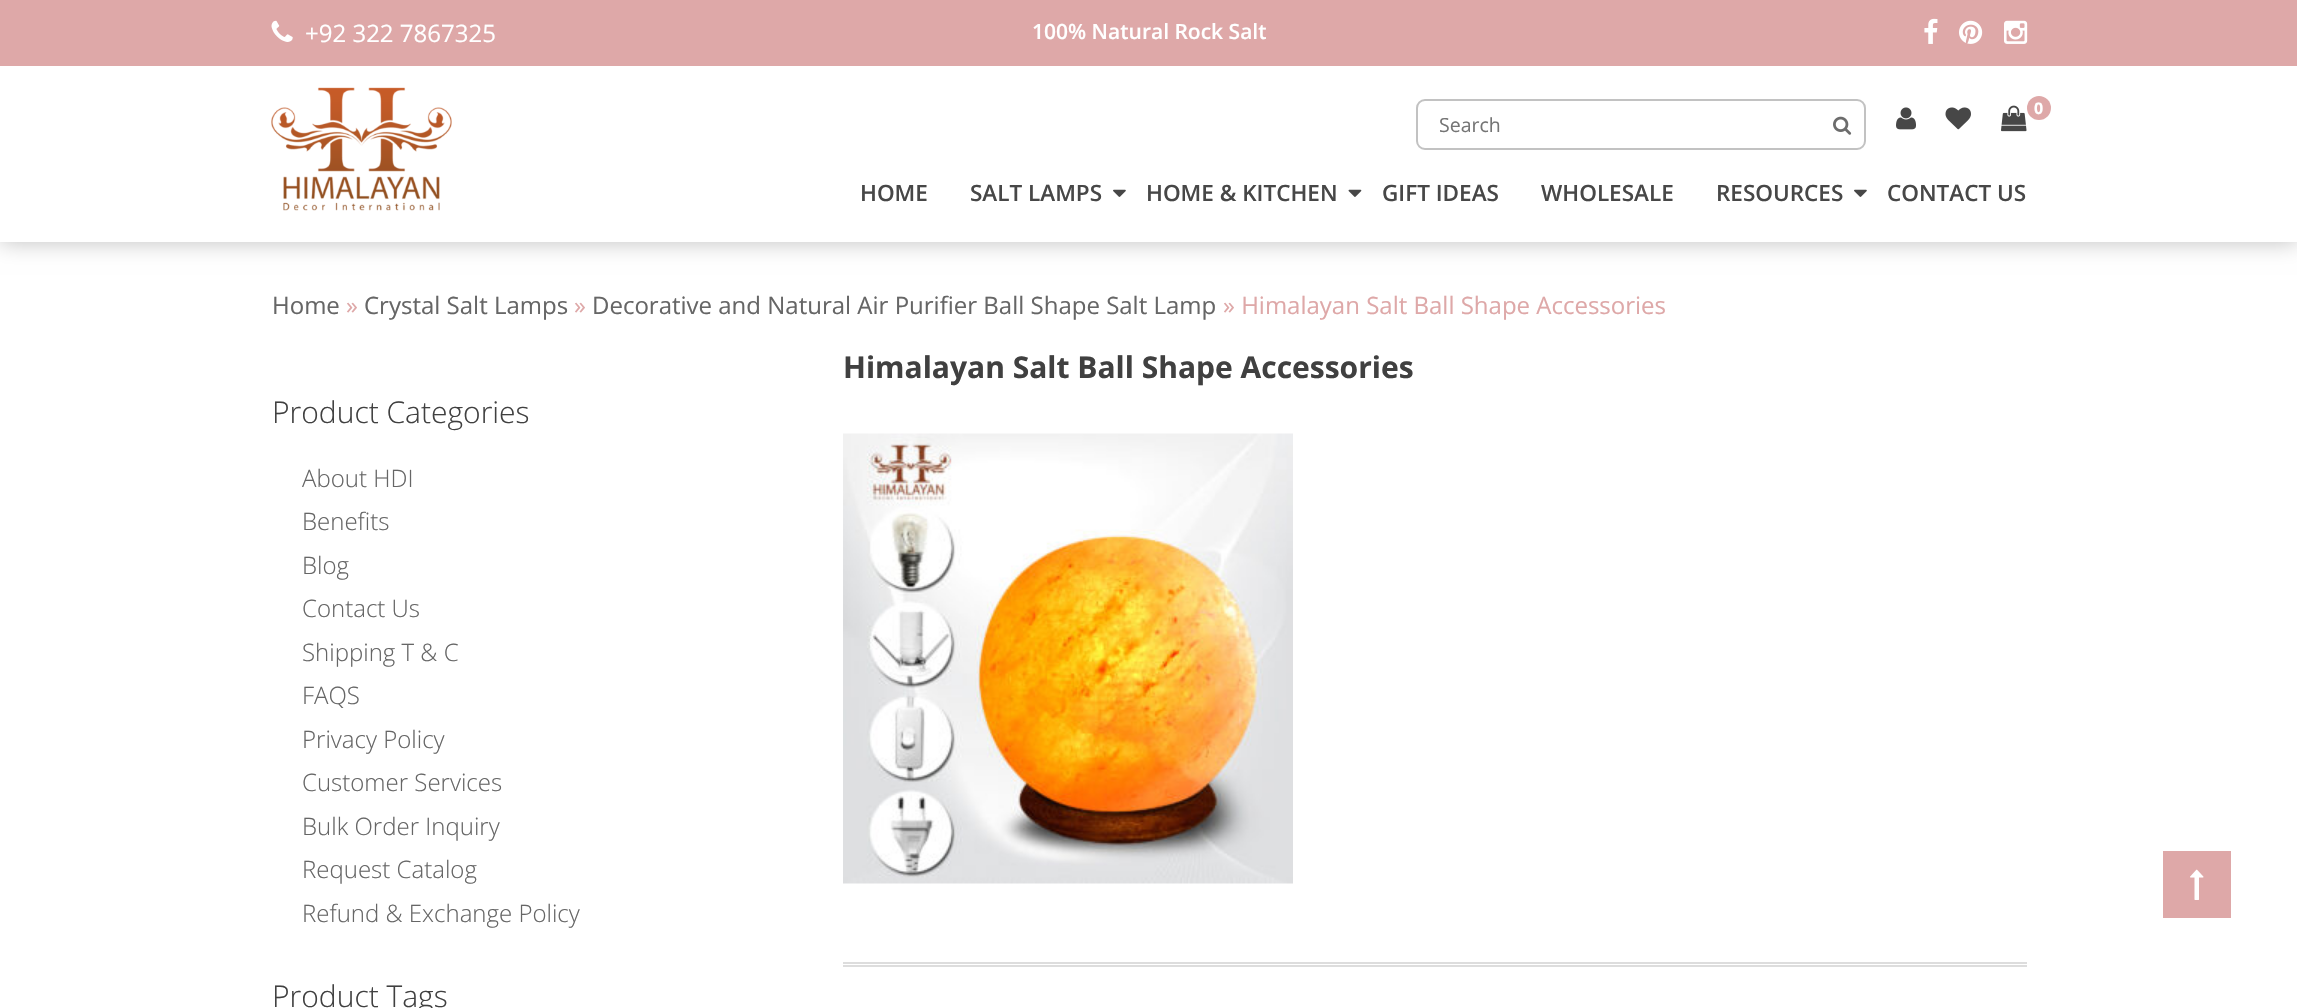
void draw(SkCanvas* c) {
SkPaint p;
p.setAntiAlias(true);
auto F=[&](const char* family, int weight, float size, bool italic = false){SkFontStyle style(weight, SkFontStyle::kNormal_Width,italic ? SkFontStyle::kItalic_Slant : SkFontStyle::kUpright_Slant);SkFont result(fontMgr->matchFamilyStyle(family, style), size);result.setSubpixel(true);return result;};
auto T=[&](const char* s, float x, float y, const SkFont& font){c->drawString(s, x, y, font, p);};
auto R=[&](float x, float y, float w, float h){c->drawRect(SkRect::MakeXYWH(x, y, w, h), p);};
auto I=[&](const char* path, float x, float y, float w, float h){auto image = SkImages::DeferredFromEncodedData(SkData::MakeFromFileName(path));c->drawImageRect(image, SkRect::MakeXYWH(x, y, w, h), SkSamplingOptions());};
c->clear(0xffffffff);
p.setColor(0x40000000);
p.setMaskFilter(SkMaskFilter::MakeBlur(kNormal_SkBlurStyle, 11));
c->drawRect(SkRect::MakeXYWH(0,0,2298,242),p);
p.setMaskFilter(nullptr);
p.setColor(0xffffffff);
R(0,66,2297,176);
p.setColor(0xffdea8a8);
R(0,0,2297,66);
I("1.png",271,20,22,22);
auto f1 = F("Open Sans",400,24);
p.setColor(0xffffffff);
T("+92 322 7867325",305,42,f1);
auto f2 = F("Open Sans",600,21);
T("100% Natural Rock Salt",1032,39,f2);
I("2.png",1924,18,14,26);
I("3.png",1959,20,24,24);
I("4.png",2004,20,24,24);
I("5.png",271,87,181,124);
p.setStroke(true);
p.setStrokeWidth(2);
p.setColor(0xffc2c2c2);
c->drawRoundRect(SkRect::MakeXYWH(1417,100,448,49),8,8,p);
auto f3 = F("Open Sans",400,19.5);
p.setStroke(false);
p.setColor(0xff757575);
T("Search",1439,132,f3);
I("6.png",1833,116,19,19);
I("7.png",1896,107,20,23);
I("8.png",1945,107,26,23);
I("9.png",2001,105,26,27);
p.setColor(0xffdea8a8);
c->drawCircle(2039,108,12,p);
auto f4 = F("Open Sans",700,16);
p.setColor(0xffffffff);
T("0",2034,114,f4);
auto f5 = F("Open Sans",600,22.5);
p.setColor(0xff474747);
T("HOME",860,201,f5);
T("SALT LAMPS",970,201,f5);
I("10.png",1113,189,13,8);
T("HOME & KITCHEN",1146,201,f5);
I("11.png",1348,189,14,8);
T("GIFT IDEAS",1382,201,f5);
T("WHOLESALE",1541,201,f5);
T("RESOURCES",1716,201,f5);
I("10.png",1854,189,13,8);
T("CONTACT US",1887,201,f5);
p.setColor(0xff666666);
T("Home",272,314,f1);
p.setColor(0xffdea8a8);
T("»",346,314,f1);
p.setColor(0xff666666);
T("Crystal Salt Lamps",364,314,f1);
p.setColor(0xffdea8a8);
T("»",574,314,f1);
p.setColor(0xff666666);
T("Decorative and Natural Air Purifier Ball Shape Salt Lamp",592,314,f1);
p.setColor(0xffdea8a8);
T("» Himalayan Salt Ball Shape Accessories",1223,314,f1);
auto f6 = F("Open Sans",700,30);
p.setColor(0xff404040);
T("Himalayan Salt Ball Shape Accessories",843,378,f6);
I("12.png",843,433,450,451);
p.setColor(0xffdddddd);
R(843,962,1184,2);
R(843,965,1184,2);
auto f7 = F("Open Sans",300,30);
p.setColor(0xff404040);
T("Product Categories",272,423,f7);
auto f8 = F("Open Sans",300,24);
p.setColor(0xff666666);
T("About HDI",302,487,f8);
T("Benefits",302,530,f8);
T("Blog",302,574,f8);
T("Contact Us",302,617,f8);
T("Shipping T & C",302,661,f8);
T("FAQS",302,704,f8);
T("Privacy Policy",302,748,f8);
T("Customer Services",302,791,f8);
T("Bulk Order Inquiry",302,835,f8);
T("Request Catalog",302,878,f8);
T("Refund & Exchange Policy",302,922,f8);
p.setColor(0xff404040);
T("Product Tags",272,1007,f7);
p.setColor(0xffdea8a8);
R(2163,851,68,67);
I("13.png",2190,869,14,31);
}
